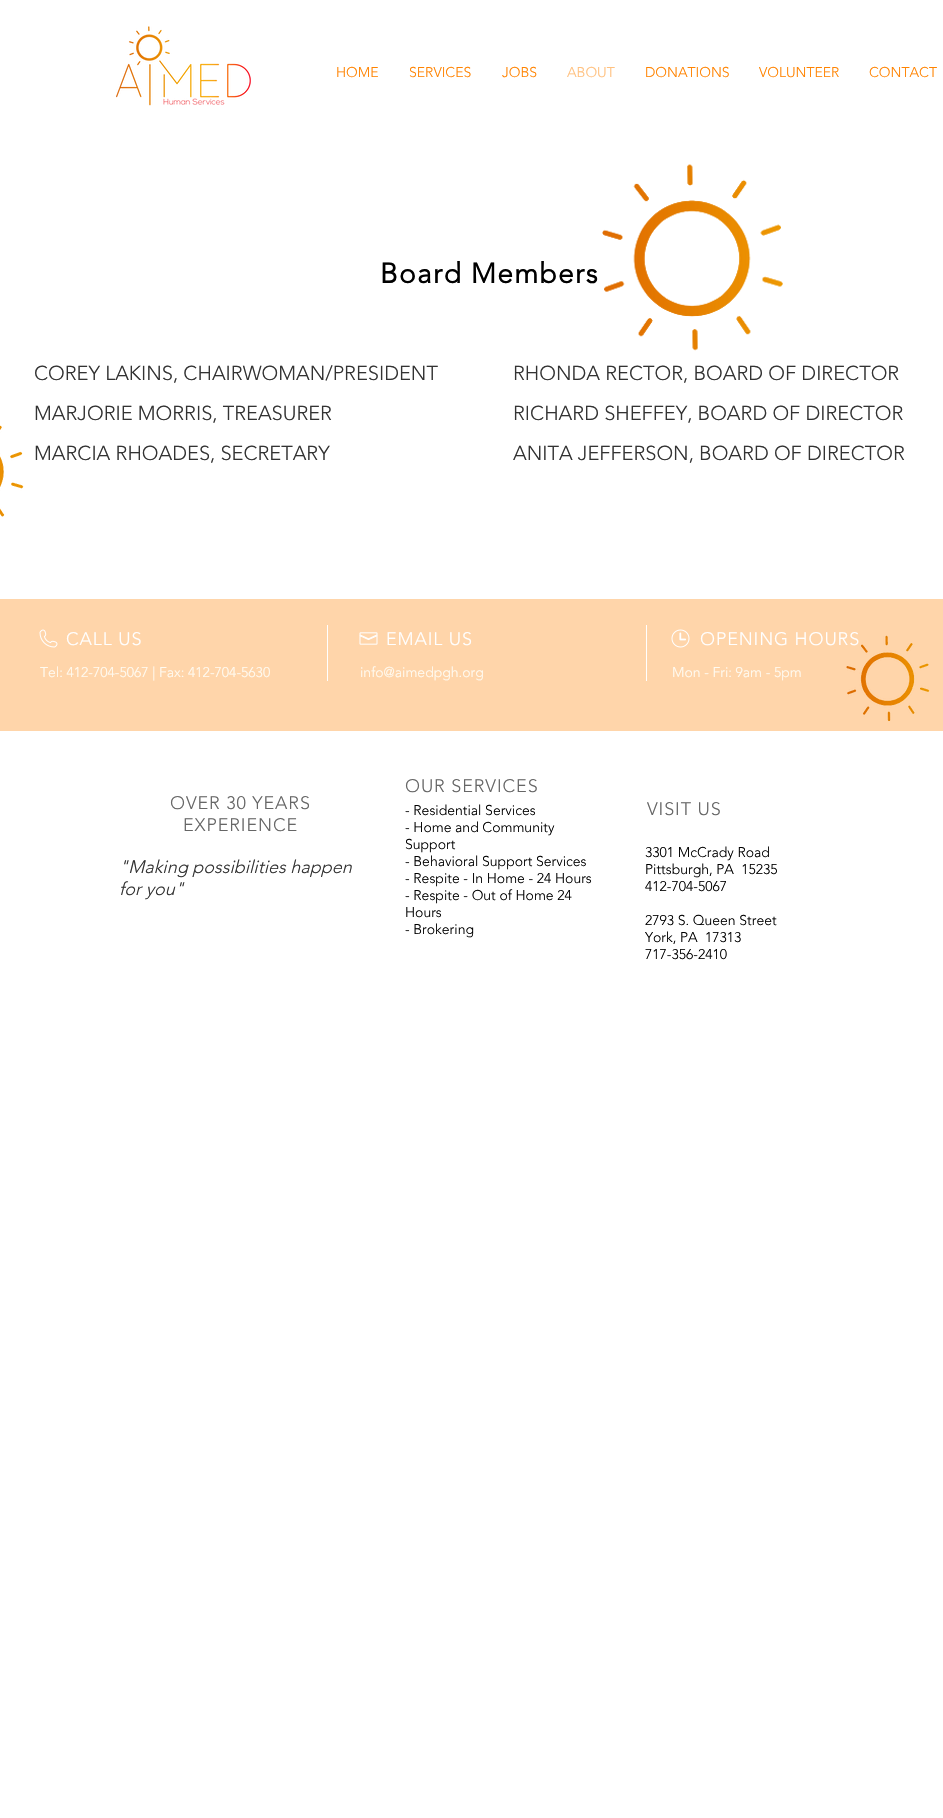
void draw(SkCanvas* c) {
SkPaint p;
p.setAntiAlias(true);
auto F=[&](const char* family, int weight, float size, bool italic = false){SkFontStyle style(weight, SkFontStyle::kNormal_Width,italic ? SkFontStyle::kItalic_Slant : SkFontStyle::kUpright_Slant);SkFont result(fontMgr->matchFamilyStyle(family, style), size);result.setSubpixel(true);return result;};
auto T=[&](const char* s, float x, float y, const SkFont& font){c->drawString(s, x, y, font, p);};
auto L=[&](const char* s, float x, float y, const SkFont& font, const SkPaint& ink, float letter, float word){std::vector<SkGlyphID> glyphs(font.countText(s, strlen(s), SkTextEncoding::kUTF8));std::vector<float> xs(glyphs.size());font.textToGlyphs(s, strlen(s), SkTextEncoding::kUTF8, glyphs);font.getXPos(glyphs, xs, x);float extra = 0;for (size_t i = 0; i < glyphs.size(); i++) {xs[i] += extra;extra += letter + word * (glyphs[i] == font.unicharToGlyph(' '));}c->drawTextBlob(SkTextBlob::MakeFromPosHGlyphs(glyphs, xs, y, font), 0, 0, ink);};
auto R=[&](float x, float y, float w, float h){c->drawRect(SkRect::MakeXYWH(x, y, w, h), p);};
auto I=[&](const char* path, float x, float y, float w, float h){auto image = SkImages::DeferredFromEncodedData(SkData::MakeFromFileName(path));c->drawImageRect(image, SkRect::MakeXYWH(x, y, w, h), SkSamplingOptions());};
c->clear(0xffffffff);
I("1.png",116,26,135,80);
auto f1 = F("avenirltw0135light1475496",300,14);
p.setColor(0xffff8300);
T("HOME",336,77,f1);
T("SERVICES",409,77,f1);
T("JOBS",502,77,f1);
p.setColor(0xffffc17f);
T("ABOUT",567,77,f1);
p.setColor(0xffff8300);
T("DONATIONS",645,77,f1);
T("VOLUNTEER",759,77,f1);
T("CONTACT",869,77,f1);
auto f2 = F("avenirltw0135light1475496",700,28);
p.setColor(0xff000000);
L("Board Members",380,283,f2,p,1.4,0);
I("2.png",0,425,24,92);
auto f3 = F("avenirltw0135light1475496",300,20);
p.setColor(0xff333333);
T("COREY LAKINS, CHAIRWOMAN/PRESIDENT",34,380,f3);
T("MARJORIE MORRIS, TREASURER",34,420,f3);
T("MARCIA RHOADES, SECRETARY",34,460,f3);
I("3.png",602,164,181,187);
T("RHONDA RECTOR, BOARD OF DIRECTOR",513,380,f3);
T("RICHARD SHEFFEY, BOARD OF DIRECTOR",513,420,f3);
T("ANITA JEFFERSON, BOARD OF DIRECTOR",513,460,f3);
p.setColor(0xffffd5aa);
R(0,599,943,132);
I("4.png",39,629,19,19);
auto f4 = F("avenirltw0135light1475496",300,18);
p.setColor(0xffffffff);
L("CALL US",66,645,f4,p,.9,0);
R(327,625,1,56);
I("5.png",359,632,19,13);
L("EMAIL US",386,645,f4,p,.9,0);
R(646,625,1,56);
I("6.png",671,629,19,19);
L("OPENING HOURS",700,645,f4,p,.9,0);
p.setColor(0xfffffbf1);
T("Tel: 412-704-5067 | Fax: 412-704-5630",40,677,f1);
T("info@aimedpgh.org",360,677,f1);
T("Mon - Fri: 9am - 5pm",672,677,f1);
I("7.png",846,635,84,86);
p.setColor(0xff666666);
L("OUR SERVICES",405,792,f4,p,.9,0);
L("OVER 30 YEARS",170,809,f4,p,.9,0);
L("EXPERIENCE",183,831,f4,p,.9,0);
p.setColor(0xff000000);
T("- Residential Services",405,815,f1);
T("- Home and Community",405,832,f1);
T("Support",405,849,f1);
T("- Behavioral Support Services",405,866,f1);
T("- Respite - In Home - 24 Hours",405,883,f1);
T("- Respite - Out of Home 24",405,900,f1);
T("Hours",405,917,f1);
T("- Brokering",405,934,f1);
p.setColor(0xff666666);
L("VISIT US",647,815,f4,p,.9,0);
auto f5 = F("avenirltw0135light1475496",300,18,true);
p.setColor(0xff333333);
T("\"Making possibilities happen",119,873,f5);
T("for you\"",119,895,f5);
p.setColor(0xff000000);
T("3301 McCrady Road",645,857,f1);
T("Pittsburgh, PA  15235",645,874,f1);
T("412-704-5067",645,891,f1);
T("2793 S. Queen Street",645,925,f1);
T("York, PA  17313",645,942,f1);
T("717-356-2410",645,959,f1);
}
